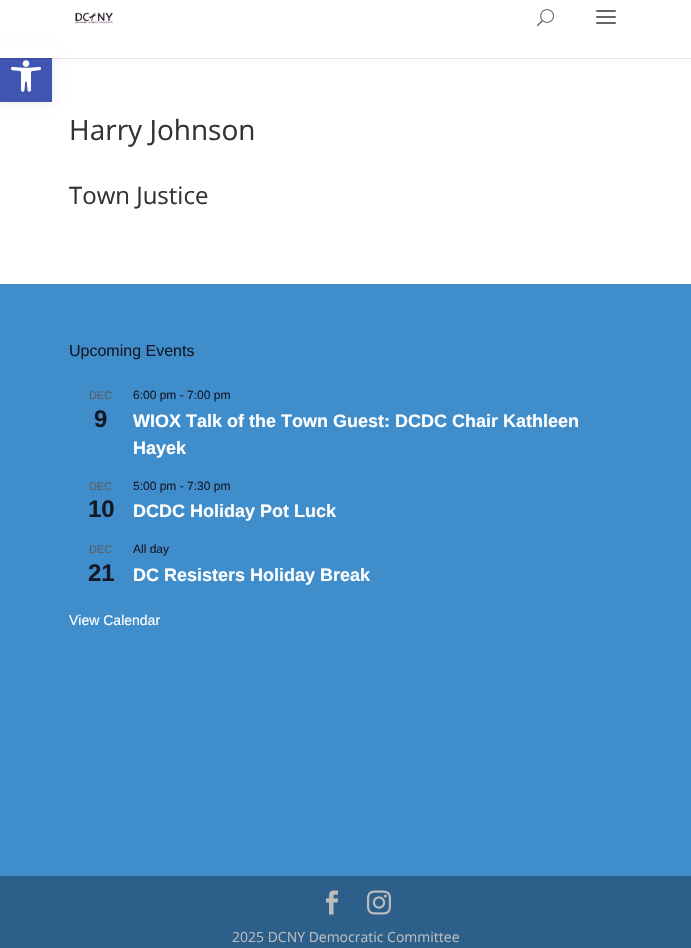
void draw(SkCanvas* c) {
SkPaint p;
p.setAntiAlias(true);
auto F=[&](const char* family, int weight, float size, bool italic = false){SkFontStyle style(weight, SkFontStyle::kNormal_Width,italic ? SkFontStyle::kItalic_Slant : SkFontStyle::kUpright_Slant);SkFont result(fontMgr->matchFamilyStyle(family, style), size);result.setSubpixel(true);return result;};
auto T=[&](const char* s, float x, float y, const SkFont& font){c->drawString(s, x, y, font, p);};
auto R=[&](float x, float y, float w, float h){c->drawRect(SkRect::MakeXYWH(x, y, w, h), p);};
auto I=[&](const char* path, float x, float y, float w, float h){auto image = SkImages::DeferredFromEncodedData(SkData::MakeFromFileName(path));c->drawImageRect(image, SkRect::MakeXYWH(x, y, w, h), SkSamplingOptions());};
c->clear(0xffffffff);
p.setColor(0x1a000000);
p.setMaskFilter(SkMaskFilter::MakeBlur(kNormal_SkBlurStyle, 5));
c->drawRect(SkRect::MakeXYWH(0,50,52,52),p);
p.setMaskFilter(nullptr);
p.setColor(0xff4054b2);
R(0,58,52,44);
I("1.png",11,60,30,32);
p.setColor(0x1a000000);
R(0,58,691,1);
p.setColor(0xffffffff);
R(0,44,58,14);
I("2.png",75,12,38,12);
I("3.png",537,9,17,18);
I("4.png",596,10,20,14);
auto f1 = F("Open Sans",400,28);
p.setColor(0xff333333);
T("Harry Johnson",69,140,f1);
auto f2 = F("Open Sans",400,24);
T("Town Justice",69,204,f2);
p.setColor(0xff408dcc);
R(0,284,691,592);
auto f3 = F("Liberation Sans",400,16);
p.setColor(0xff141827);
T("Upcoming Events",69,356,f3);
auto f4 = F("Liberation Sans",400,11);
p.setColor(0xff5d5d5d);
T("DEC",89,399,f4);
auto f5 = F("Liberation Sans",700,24);
p.setColor(0xff141827);
T("9",94,427,f5);
auto f6 = F("Liberation Sans",400,12);
T("6:00 pm - 7:00 pm",133,399,f6);
auto f7 = F("Liberation Sans",700,18);
p.setColor(0xffffffff);
T("WIOX Talk of the Town Guest: DCDC Chair Kathleen",133,427,f7);
T("Hayek",133,454,f7);
p.setColor(0xff5d5d5d);
T("DEC",89,490,f4);
p.setColor(0xff141827);
T("10",88,517,f5);
T("5:00 pm - 7:30 pm",133,490,f6);
p.setColor(0xffffffff);
T("DCDC Holiday Pot Luck",133,517,f7);
p.setColor(0xff5d5d5d);
T("DEC",89,553,f4);
p.setColor(0xff141827);
T("21",88,581,f5);
T("All day",133,553,f6);
p.setColor(0xffffffff);
T("DC Resisters Holiday Break",133,581,f7);
auto f8 = F("Liberation Sans",400,14);
T("View Calendar",69,625,f8);
p.setColor(0xff2c608b);
R(0,876,691,72);
I("5.png",326,890,12,25);
I("6.png",367,890,24,25);
auto f9 = F("Open Sans",400,14);
p.setColor(0xffbcbcbc);
T("2025 DCNY Democratic Committee",232,942,f9);
}
